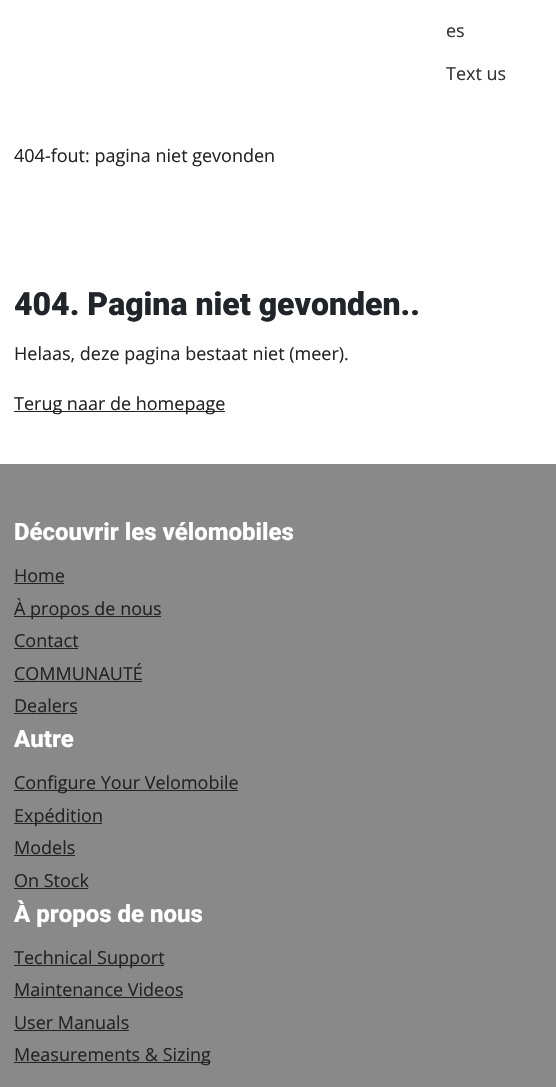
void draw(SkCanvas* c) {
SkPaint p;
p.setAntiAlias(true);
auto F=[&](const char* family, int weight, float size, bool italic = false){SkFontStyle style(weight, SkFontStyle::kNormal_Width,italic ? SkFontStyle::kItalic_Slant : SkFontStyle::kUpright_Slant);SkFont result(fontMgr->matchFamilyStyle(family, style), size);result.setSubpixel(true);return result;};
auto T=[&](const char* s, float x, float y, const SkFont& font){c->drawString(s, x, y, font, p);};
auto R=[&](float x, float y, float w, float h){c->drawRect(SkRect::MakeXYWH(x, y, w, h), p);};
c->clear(0xffffffff);
auto f1 = F("Open Sans",400,18);
p.setColor(0xff333333);
T("es",446,37,f1);
T("Text us",446,80,f1);
p.setColor(0xff232323);
T("404-fout: pagina niet gevonden",14,162,f1);
auto f2 = F("Roboto",900,32);
p.setColor(0xff212529);
T("404. Pagina niet gevonden..",14,315,f2);
p.setColor(0xff232323);
T("Helaas, deze pagina bestaat niet (meer).",14,360,f1);
R(14,411,211,1);
T("Terug naar de homepage",14,410,f1);
p.setColor(0xff898989);
R(0,464,556,623);
auto f3 = F("Roboto",800,24);
p.setColor(0xffffffff);
T("Découvrir les vélomobiles",14,540,f3);
p.setColor(0xff232323);
T("Home",14,582,f1);
R(14,583,50,1);
R(14,616,147,1);
T("À propos de nous",14,615,f1);
T("Contact",14,647,f1);
R(14,648,64,1);
T("COMMUNAUTÉ",14,680,f1);
R(14,681,128,1);
T("Dealers",14,712,f1);
R(14,713,63,1);
p.setColor(0xffffffff);
T("Autre",14,747,f3);
p.setColor(0xff232323);
R(14,790,224,1);
T("Configure Your Velomobile",14,789,f1);
R(14,823,88,1);
T("Expédition",14,822,f1);
T("Models",14,854,f1);
R(14,855,61,1);
T("On Stock",14,887,f1);
R(14,888,74,1);
p.setColor(0xffffffff);
T("À propos de nous",14,922,f3);
p.setColor(0xff232323);
R(14,965,150,1);
T("Technical Support",14,964,f1);
T("Maintenance Videos",14,996,f1);
R(14,997,169,1);
T("User Manuals",14,1029,f1);
R(14,1030,115,1);
R(14,1062,196,1);
T("Measurements & Sizing",14,1061,f1);
}
